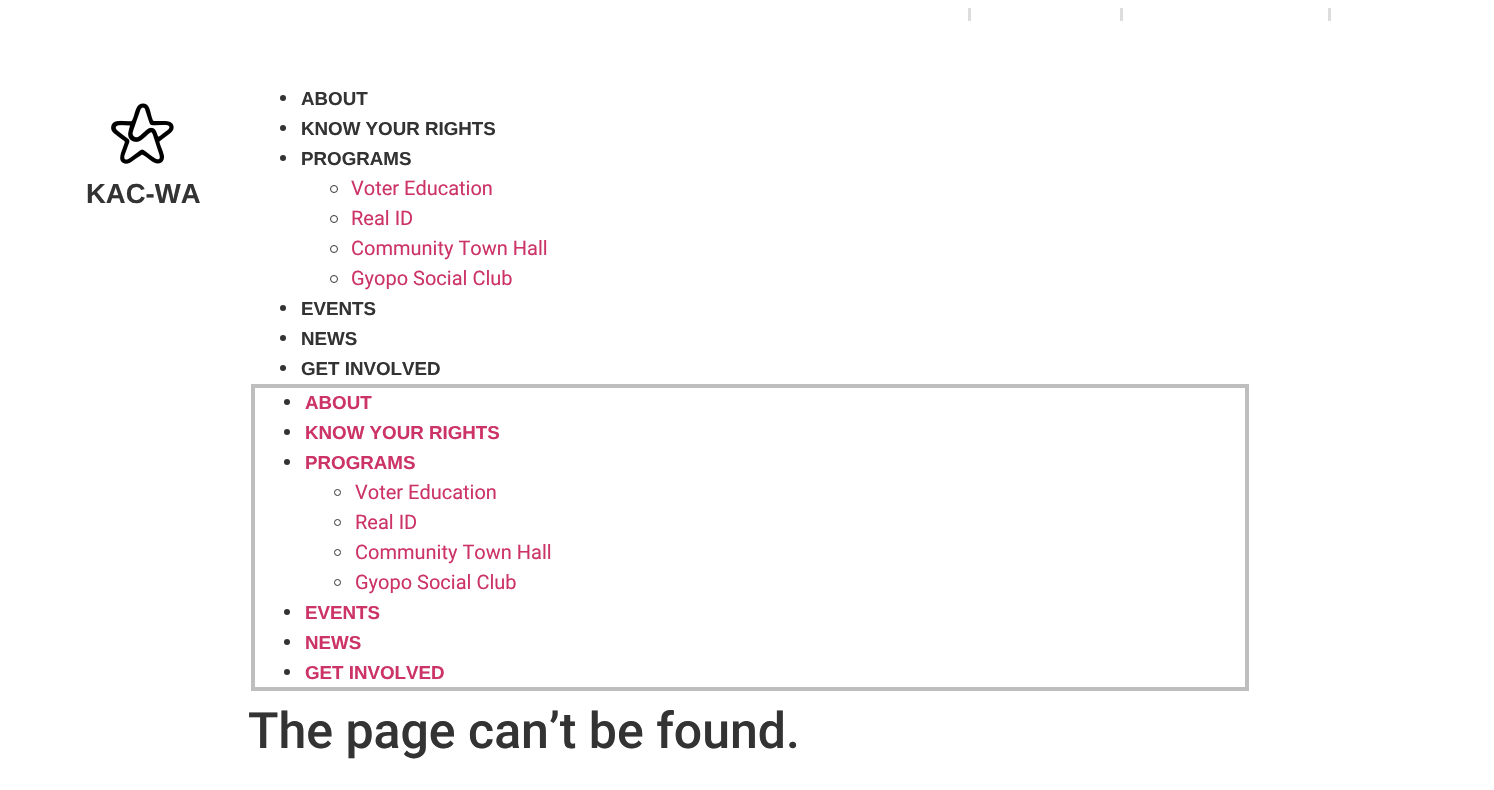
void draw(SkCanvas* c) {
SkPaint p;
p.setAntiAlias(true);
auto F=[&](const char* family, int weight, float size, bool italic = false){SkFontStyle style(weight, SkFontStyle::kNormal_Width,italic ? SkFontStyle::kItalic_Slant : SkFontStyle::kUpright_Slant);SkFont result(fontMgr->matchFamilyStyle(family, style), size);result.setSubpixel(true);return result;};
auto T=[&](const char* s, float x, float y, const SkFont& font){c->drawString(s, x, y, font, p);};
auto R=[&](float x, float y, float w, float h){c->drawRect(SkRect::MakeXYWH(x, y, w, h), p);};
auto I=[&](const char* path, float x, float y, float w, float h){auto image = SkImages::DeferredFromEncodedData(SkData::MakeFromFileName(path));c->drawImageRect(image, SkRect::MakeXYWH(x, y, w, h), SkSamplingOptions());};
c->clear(0xffffffff);
p.setColor(0xffdddddd);
R(968,8,3,13);
R(1120,8,3,13);
R(1328,8,3,13);
I("1.png",111,103,63,61);
auto f1 = F("Liberation Sans",700,27.5);
p.setColor(0xff333333);
T("KAC-WA",86,203,f1);
c->drawCircle(283,98,3,p);
auto f2 = F("Liberation Sans",700,18.75);
T("ABOUT",301,105,f2);
c->drawCircle(283,128,3,p);
T("KNOW YOUR RIGHTS",301,135,f2);
c->drawCircle(283,158,3,p);
T("PROGRAMS",301,165,f2);
p.setStroke(true);
p.setStrokeWidth(1);
c->drawCircle(334,189,3.5,p);
auto f3 = F("Roboto",400,20);
p.setStroke(false);
p.setColor(0xffcc3366);
T("Voter Education",351,195,f3);
p.setStroke(true);
p.setColor(0xff333333);
c->drawCircle(334,219,3.5,p);
p.setStroke(false);
p.setColor(0xffcc3366);
T("Real ID",351,225,f3);
p.setStroke(true);
p.setColor(0xff333333);
c->drawCircle(334,249,3.5,p);
p.setStroke(false);
p.setColor(0xffcc3366);
T("Community Town Hall",351,255,f3);
p.setStroke(true);
p.setColor(0xff333333);
c->drawCircle(334,279,3.5,p);
p.setStroke(false);
p.setColor(0xffcc3366);
T("Gyopo Social Club",351,285,f3);
p.setColor(0xff333333);
c->drawCircle(283,308,3,p);
T("EVENTS",301,315,f2);
c->drawCircle(283,338,3,p);
T("NEWS",301,345,f2);
c->drawCircle(283,368,3,p);
T("GET INVOLVED",301,375,f2);
p.setStroke(true);
p.setStrokeWidth(4);
p.setColor(0xffbebebe);
c->drawRect(SkRect::MakeXYWH(253,386,994,303),p);
p.setStroke(false);
p.setColor(0xff333333);
c->drawCircle(287,402,3,p);
p.setColor(0xffcc3366);
T("ABOUT",305,409,f2);
p.setColor(0xff333333);
c->drawCircle(287,432,3,p);
p.setColor(0xffcc3366);
T("KNOW YOUR RIGHTS",305,439,f2);
p.setColor(0xff333333);
c->drawCircle(287,462,3,p);
p.setColor(0xffcc3366);
T("PROGRAMS",305,469,f2);
p.setStroke(true);
p.setStrokeWidth(1);
p.setColor(0xff333333);
c->drawCircle(337.5,492.5,3,p);
p.setStroke(false);
p.setColor(0xffcc3366);
T("Voter Education",355,499,f3);
p.setStroke(true);
p.setColor(0xff333333);
c->drawCircle(337.5,522.5,3,p);
p.setStroke(false);
p.setColor(0xffcc3366);
T("Real ID",355,529,f3);
p.setStroke(true);
p.setColor(0xff333333);
c->drawCircle(337.5,552.5,3,p);
p.setStroke(false);
p.setColor(0xffcc3366);
T("Community Town Hall",355,559,f3);
p.setStroke(true);
p.setColor(0xff333333);
c->drawCircle(337.5,582.5,3,p);
p.setStroke(false);
p.setColor(0xffcc3366);
T("Gyopo Social Club",355,589,f3);
p.setColor(0xff333333);
c->drawCircle(287,612,3,p);
p.setColor(0xffcc3366);
T("EVENTS",305,619,f2);
p.setColor(0xff333333);
c->drawCircle(287,642,3,p);
p.setColor(0xffcc3366);
T("NEWS",305,649,f2);
p.setColor(0xff333333);
c->drawCircle(287,672,3,p);
p.setColor(0xffcc3366);
T("GET INVOLVED",305,679,f2);
auto f4 = F("Roboto",500,50);
p.setColor(0xff333333);
T("The page can’t be found.",248,748,f4);
}
